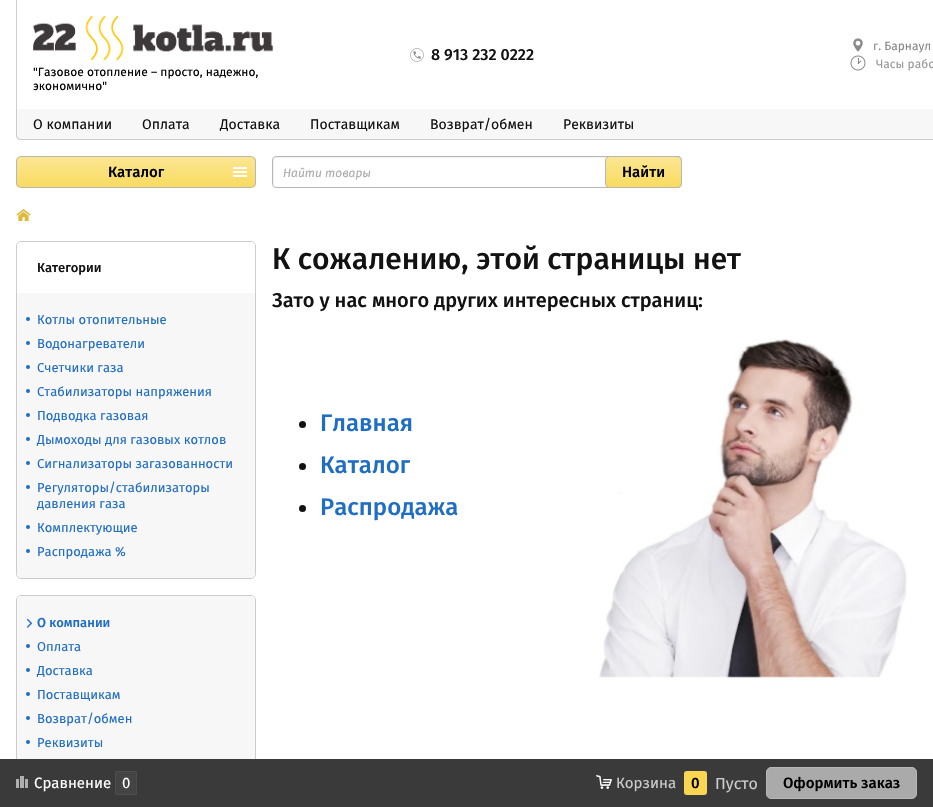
void draw(SkCanvas* c) {
SkPaint p;
p.setAntiAlias(true);
auto F=[&](const char* family, int weight, float size, bool italic = false){SkFontStyle style(weight, SkFontStyle::kNormal_Width,italic ? SkFontStyle::kItalic_Slant : SkFontStyle::kUpright_Slant);SkFont result(fontMgr->matchFamilyStyle(family, style), size);result.setSubpixel(true);return result;};
auto T=[&](const char* s, float x, float y, const SkFont& font){c->drawString(s, x, y, font, p);};
auto R=[&](float x, float y, float w, float h){c->drawRect(SkRect::MakeXYWH(x, y, w, h), p);};
auto Q=[&](float x, float y, float w, float h, float radius){c->drawRoundRect(SkRect::MakeXYWH(x, y, w, h), radius, radius, p);};
auto I=[&](const char* path, float x, float y, float w, float h){auto image = SkImages::DeferredFromEncodedData(SkData::MakeFromFileName(path));c->drawImageRect(image, SkRect::MakeXYWH(x, y, w, h), SkSamplingOptions());};
auto P=[&](const char* data, bool evenOdd = false){SkPath result = *SkParsePath::FromSVGString(data);if (evenOdd) result.setFillType(SkPathFillType::kEvenOdd);return result;};
c->clear(0xffffffff);
p.setColor(0xffcccccc);
c->drawPath(P("M16 0h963v135c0 3-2 5-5 5h-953c-3 0-5-2-5-5zm1 0h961v135c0 2-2 4-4 4h-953c-2 0-4-2-4-4z",true),p);
I("1.png",410,48,14,14);
auto f1 = F("Fira Sans",500,16);
p.setColor(0xff121212);
T("8 913 232 0222",431,60,f1);
I("2.png",853,38,10,14);
auto f2 = F("Fira Sans",400,12);
p.setColor(0xff888888);
T("г. Барнаул",873,50,f2);
I("3.png",850,55,16,16);
p.setColor(0xff999999);
T("Часы рабо",876,68,f2);
I("4.png",33,16,240,45);
p.setColor(0xff000000);
T("\"Газовое отопление – просто, надежно,",33,76,f2);
T("экономично\"",33,90,f2);
p.setColor(0xfff7f7f7);
c->drawPath(P("M17 109h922v24c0 3.5-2.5 6-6 6h-910c-3.5 0-6-2.5-6-6z"),p);
auto f3 = F("Fira Sans",400,14);
p.setColor(0xff121212);
T("О компании",33,129,f3);
T("Оплата",142,129,f3);
T("Доставка",220,129,f3);
T("Поставщикам",310,129,f3);
T("Возврат/обмен",430,129,f3);
T("Реквизиты",563,129,f3);
c->save();
c->clipPath(P("M21 156h230c3 0 5 2 5 5v22c0 3-2 5-5 5h-230c-3 0-5-2-5-5v-22c0-3 2-5 5-5z"),true);
{
const SkColor colors[] = {0xfffbe693,0xfff9db60};
const float stops[] = {0,1};
const SkPoint ends[] = {{136,157}, {136,187}};
p.setShader(SkGradientShader::MakeLinear(ends, colors, stops, 2, SkTileMode::kClamp));
p.setAlpha(255);
}
R(16,157,240,30);
c->restore();
p.setStroke(true);
p.setStrokeWidth(1);
p.setShader(nullptr);
p.setColor(0xffb7b7b7);
c->drawRoundRect(SkRect::MakeXYWH(16.5,156.5,239,31),4.5,4.5,p);
auto f4 = F("Fira Sans",500,15);
p.setStroke(false);
p.setColor(0xff000000);
T("Каталог",108,177,f4);
p.setColor(0xffffffff);
R(233,167,14,2);
R(233,171,14,2);
R(233,175,14,2);
p.setColor(0xfff2f2f2);
c->drawPath(P("M277 158h403l-2-1h-402c-4 0-3 5-3 7v8c0 3-1 13 1 14v-21c0-3-1-7 3-7z"),p);
p.setStroke(true);
p.setColor(0xffb7b7b7);
c->drawRoundRect(SkRect::MakeXYWH(272.5,156.5,409,31),3.5,3.5,p);
auto f5 = F("Fira Sans",400,12,true);
p.setStroke(false);
p.setColor(0xffaaaaaa);
T("Найти товары",283,177,f5);
c->save();
c->clipPath(P("M610 156h67c3 0 5 2 5 5v22c0 3-2 5-5 5h-67c-3 0-5-2-5-5v-22c0-3 2-5 5-5z"),true);
{
const SkColor colors[] = {0xfffbe693,0xfff9db60};
const float stops[] = {0,1};
const SkPoint ends[] = {{644,157}, {644,187}};
p.setShader(SkGradientShader::MakeLinear(ends, colors, stops, 2, SkTileMode::kClamp));
p.setAlpha(255);
}
R(605,157,77,30);
c->restore();
p.setStroke(true);
p.setShader(nullptr);
p.setColor(0xffb7b7b7);
c->drawRoundRect(SkRect::MakeXYWH(605.5,156.5,76,31),4.5,4.5,p);
p.setStroke(false);
p.setColor(0xff000000);
T("Найти",622,177,f4);
I("5.png",16,209,15,12);
p.setStroke(true);
p.setColor(0xffcccccc);
c->drawRoundRect(SkRect::MakeXYWH(16.5,241.5,239,337),4.5,4.5,p);
p.setStroke(false);
p.setColor(0xffffffff);
c->drawPath(P("M21 242h230c2 0 4 2 4 4v47h-238v-47c0-2 2-4 4-4z"),p);
auto f6 = F("Fira Sans",500,13);
p.setColor(0xff121212);
T("Категории",37,272,f6);
p.setColor(0xfff7f7f7);
c->drawPath(P("M17 293h238v281c0 2-2 4-4 4h-230c-2 0-4-2-4-4z"),p);
p.setColor(0xff206dc4);
c->drawCircle(28,319,2,p);
auto f7 = F("Fira Sans",400,13);
T("Котлы отопительные",37,324,f7);
c->drawCircle(28,343,2,p);
T("Водонагреватели",37,348,f7);
c->drawCircle(28,367,2,p);
T("Счетчики газа",37,372,f7);
c->drawCircle(28,391,2,p);
T("Стабилизаторы напряжения",37,396,f7);
c->drawCircle(28,415,2,p);
T("Подводка газовая",37,420,f7);
c->drawCircle(28,439,2,p);
T("Дымоходы для газовых котлов",37,444,f7);
c->drawCircle(28,463,2,p);
T("Сигнализаторы загазованности",37,468,f7);
c->drawCircle(28,487,2,p);
T("Регуляторы/стабилизаторы",37,492,f7);
T("давления газа",37,508,f7);
c->drawCircle(28,527,2,p);
T("Комплектующие",37,532,f7);
c->drawCircle(28,551,2,p);
T("Распродажа %",37,556,f7);
p.setStroke(true);
p.setColor(0xffcccccc);
c->drawRoundRect(SkRect::MakeXYWH(16.5,595.5,239,174),4.5,4.5,p);
p.setStroke(false);
p.setColor(0xfff7f7f7);
Q(17,596,238,173,4);
I("6.png",27,619,5,9);
p.setColor(0xff206dc4);
T("О компании",37,627,f6);
c->drawCircle(28,646,2,p);
T("Оплата",37,651,f7);
c->drawCircle(28,670,2,p);
T("Доставка",37,675,f7);
c->drawCircle(28,694,2,p);
T("Поставщикам",37,699,f7);
c->drawCircle(28,718,2,p);
T("Возврат/обмен",37,723,f7);
c->drawCircle(28,742,2,p);
T("Реквизиты",37,747,f7);
auto f8 = F("Fira Sans",500,30);
p.setColor(0xff121212);
T("К сожалению, этой страницы нет",272,269,f8);
auto f9 = F("Fira Sans",500,20);
T("Зато у нас много других интересных страниц:",272,307,f9);
c->drawCircle(302.5,424.5,3.5,p);
auto f10 = F("Fira Sans",500,24);
p.setColor(0xff206dc4);
T("Главная",320,431,f10);
p.setColor(0xff121212);
c->drawCircle(302.5,466.5,3.5,p);
p.setColor(0xff206dc4);
T("Каталог",320,473,f10);
p.setColor(0xff121212);
c->drawCircle(302.5,508.5,3.5,p);
p.setColor(0xff206dc4);
T("Распродажа",320,515,f10);
I("7.png",599,339,308,339);
p.setColor(0xff3a3a3a);
R(0,759,933,48);
I("8.png",16,776,12,12);
auto f11 = F("Fira Sans",400,15);
p.setColor(0xffffffff);
T("Сравнение",34,788,f11);
p.setColor(0xff444444);
Q(115,771,22,24,3);
p.setStroke(true);
p.setColor(0x0dffffff);
c->drawRect(SkRect::MakeXYWH(115.5,771.5,21,23),p);
p.setStroke(false);
p.setColor(0xffffffff);
T("0",122,788,f11);
I("9.png",596,775,16,14);
p.setColor(0xffcccccc);
T("Корзина",616,788,f11);
p.setColor(0xfff9d550);
Q(684,771,23,24,3);
p.setStroke(true);
p.setColor(0x0dffffff);
c->drawRect(SkRect::MakeXYWH(684.5,771.5,22,23),p);
p.setStroke(false);
p.setColor(0xff000000);
T("0",691,788,f4);
auto f12 = F("Fira Sans",400,16);
p.setColor(0xffcccccc);
T("Пусто",715,789,f12);
p.setColor(0xffaaaaaa);
c->drawRoundRect(SkRect::MakeXYWH(766.5,767.5,150,31),4.5,4.5,p);
p.setStroke(true);
p.setColor(0xffb7b7b7);
c->drawRoundRect(SkRect::MakeXYWH(766.5,767.5,150,31),4.5,4.5,p);
p.setStroke(false);
p.setColor(0xff000000);
T("Оформить заказ",783,788,f4);
}
